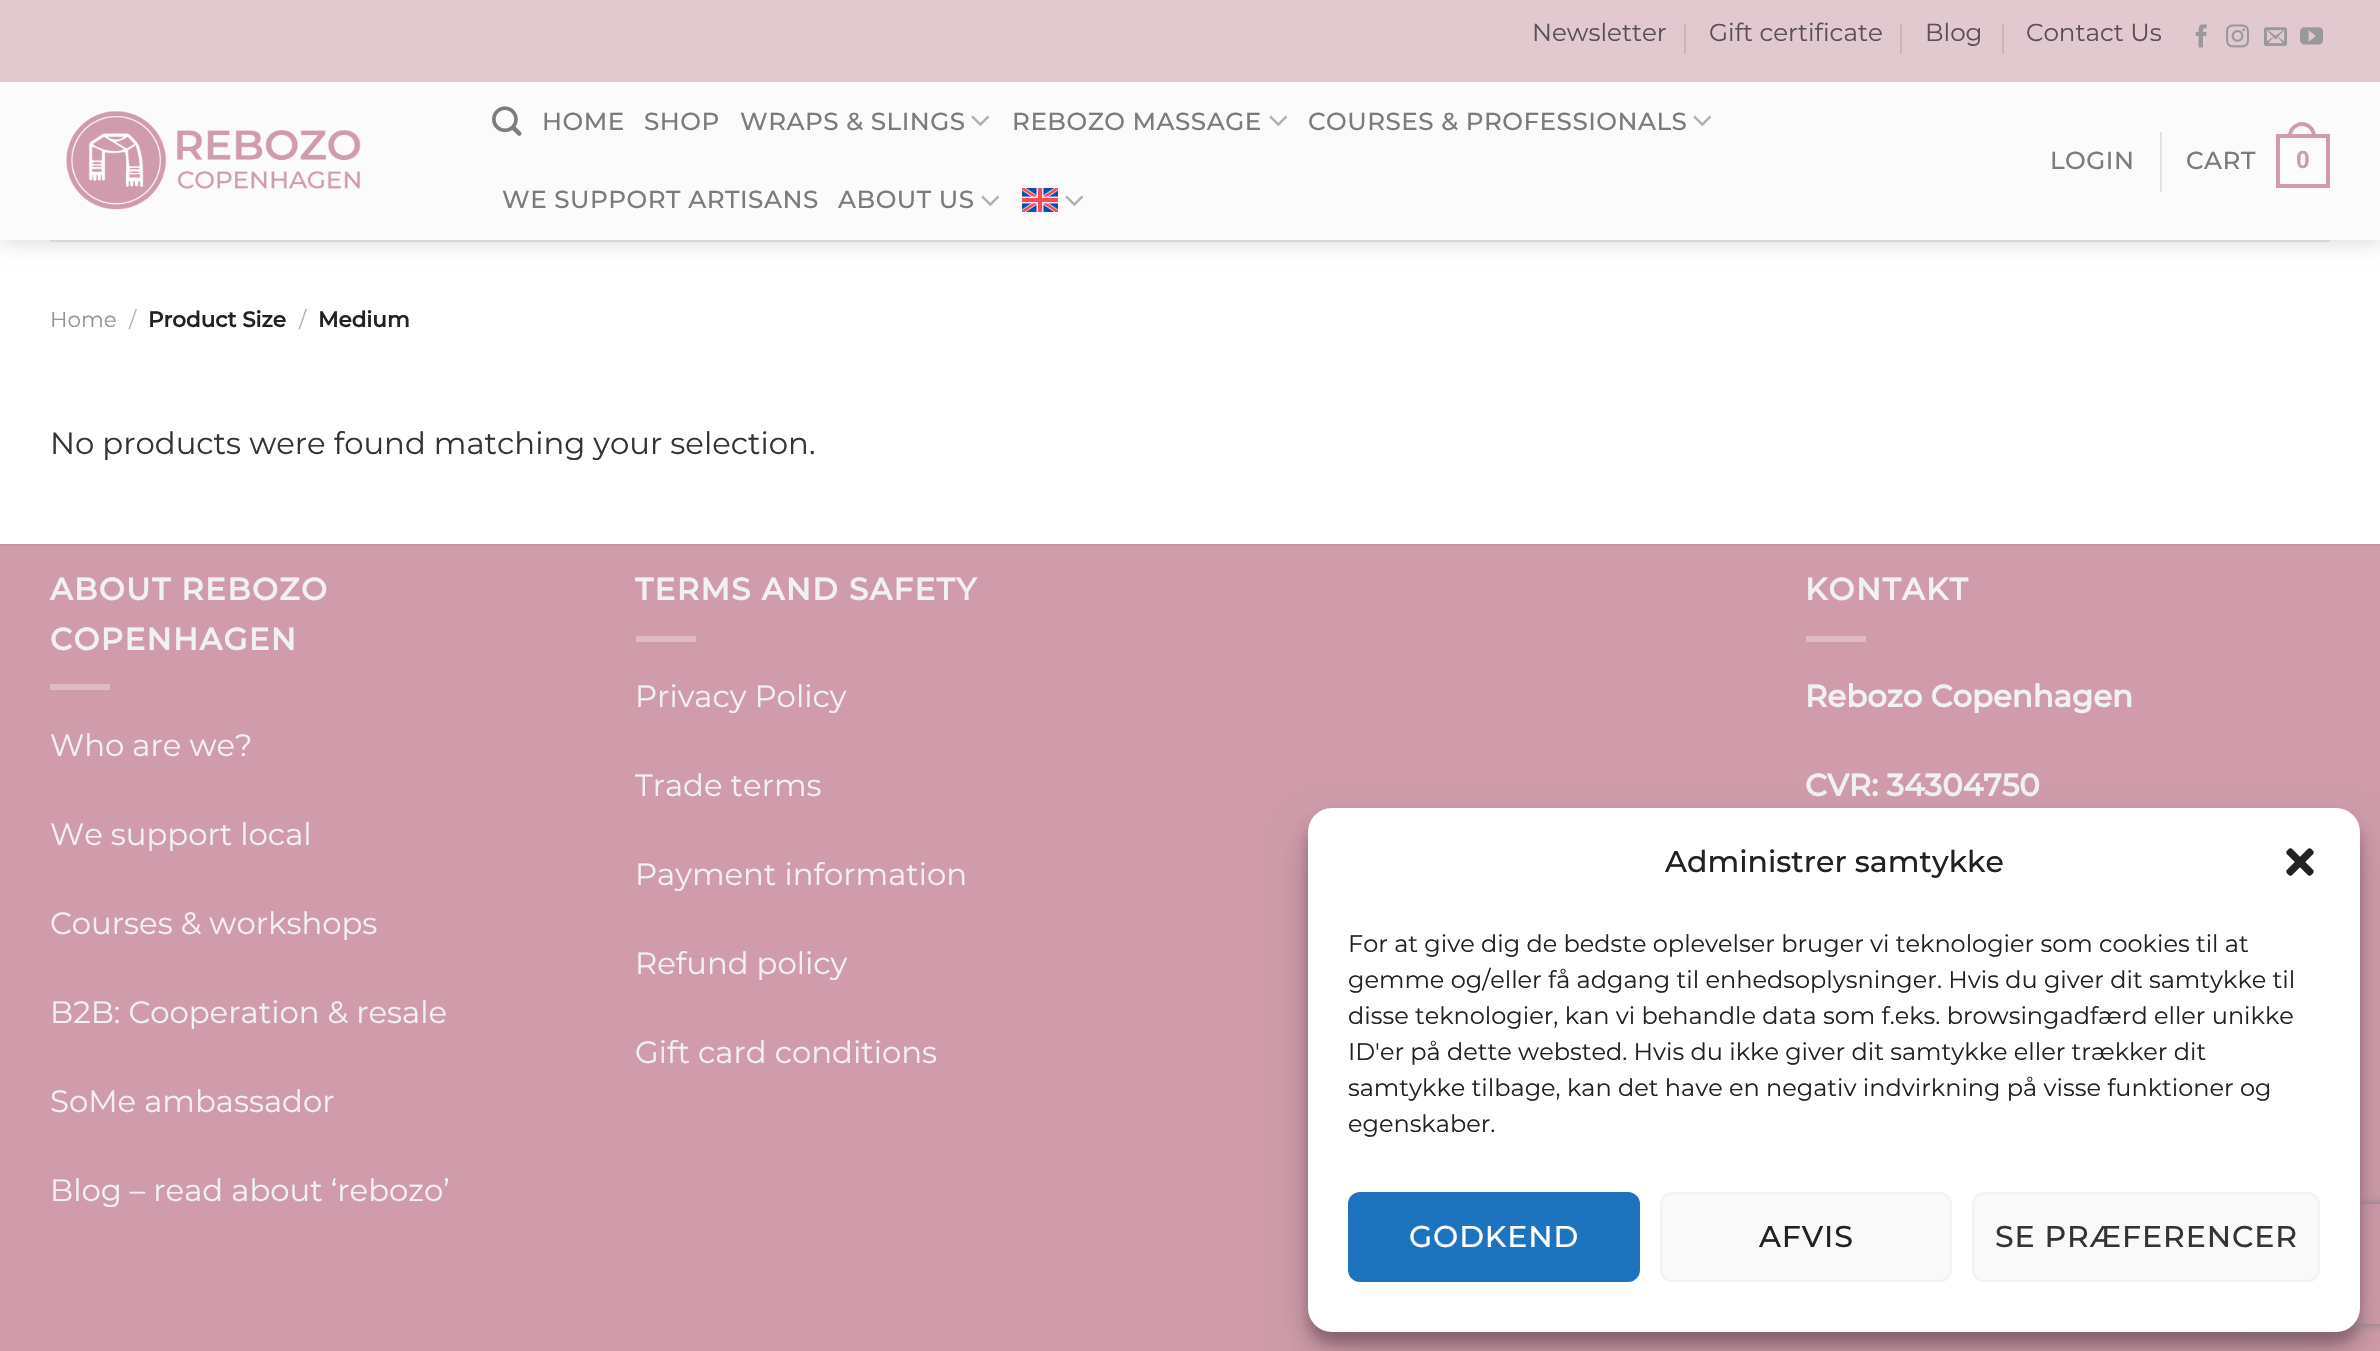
void draw(SkCanvas* c) {
SkPaint p;
p.setAntiAlias(true);
auto F=[&](const char* family, int weight, float size, bool italic = false){SkFontStyle style(weight, SkFontStyle::kNormal_Width,italic ? SkFontStyle::kItalic_Slant : SkFontStyle::kUpright_Slant);SkFont result(fontMgr->matchFamilyStyle(family, style), size);result.setSubpixel(true);return result;};
auto T=[&](const char* s, float x, float y, const SkFont& font){c->drawString(s, x, y, font, p);};
auto L=[&](const char* s, float x, float y, const SkFont& font, const SkPaint& ink, float letter, float word){std::vector<SkGlyphID> glyphs(font.countText(s, strlen(s), SkTextEncoding::kUTF8));std::vector<float> xs(glyphs.size());font.textToGlyphs(s, strlen(s), SkTextEncoding::kUTF8, glyphs);font.getXPos(glyphs, xs, x);float extra = 0;for (size_t i = 0; i < glyphs.size(); i++) {xs[i] += extra;extra += letter + word * (glyphs[i] == font.unicharToGlyph(' '));}c->drawTextBlob(SkTextBlob::MakeFromPosHGlyphs(glyphs, xs, y, font), 0, 0, ink);};
auto R=[&](float x, float y, float w, float h){c->drawRect(SkRect::MakeXYWH(x, y, w, h), p);};
auto Q=[&](float x, float y, float w, float h, float radius){c->drawRoundRect(SkRect::MakeXYWH(x, y, w, h), radius, radius, p);};
auto I=[&](const char* path, float x, float y, float w, float h){auto image = SkImages::DeferredFromEncodedData(SkData::MakeFromFileName(path));c->drawImageRect(image, SkRect::MakeXYWH(x, y, w, h), SkSamplingOptions());};
auto P=[&](const char* data, bool evenOdd = false){SkPath result = *SkParsePath::FromSVGString(data);if (evenOdd) result.setFillType(SkPathFillType::kEvenOdd);return result;};
c->clear(0xffffffff);
p.setColor(0x26000000);
p.setMaskFilter(SkMaskFilter::MakeBlur(kNormal_SkBlurStyle, 10));
c->drawRect(SkRect::MakeXYWH(2,-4,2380,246),p);
p.setMaskFilter(nullptr);
p.setColor(0xffe2c8cf);
R(0,0,2380,82);
auto f1 = F("Montserrat",400,24.6);
p.setColor(0xff595153);
T("Newsletter",1532,41,f1);
p.setColor(0xffcbb4ba);
R(1684,24,2,30);
p.setColor(0xff595153);
T("Gift certificate",1709,41,f1);
p.setColor(0xffcbb4ba);
R(1900,24,2,30);
p.setColor(0xff595153);
T("Blog",1925,41,f1);
p.setColor(0xffcbb4ba);
R(2002,24,2,30);
p.setColor(0xff595153);
T("Contact Us",2026,41,f1);
I("1.png",2195,24,12,24);
I("2.png",2226,24,23,24);
I("3.png",2264,27,23,19);
I("4.png",2300,27,23,18);
p.setColor(0xfffbfbfb);
R(0,82,2380,158);
I("5.png",66,111,295,99);
I("6.png",492,106,30,30);
auto f2 = F("Montserrat",500,24.6);
p.setColor(0xff7c7c7c);
L("HOME",542,130,f2,p,.5,0);
L("SHOP",644,130,f2,p,.5,0);
L("WRAPS & SLINGS",740,130,f2,p,.5,0);
I("7.png",971,115,19,11);
L("REBOZO MASSAGE",1012,130,f2,p,.5,0);
I("7.png",1269,115,19,11);
L("COURSES & PROFESSIONALS",1308,130,f2,p,.5,0);
I("7.png",1693,115,19,11);
L("WE SUPPORT ARTISANS",502,208,f2,p,.5,0);
L("ABOUT US",838,208,f2,p,.5,0);
I("7.png",981,195,19,11);
I("8.png",1022,188,36,24);
I("7.png",1065,195,19,11);
L("LOGIN",2050,169,f2,p,.5,0);
p.setColor(0xffe2e2e2);
R(2160,132,2,60);
p.setColor(0xff7c7c7c);
L("CART",2186,169,f2,p,.5,0);
p.setStroke(true);
p.setStrokeWidth(4);
p.setColor(0xffd09cab);
c->drawRect(SkRect::MakeXYWH(2278,136,50,50),p);
p.setStroke(false);
c->drawPath(P("M2302 122c7.5 0 14 6.5 14 14v2h-28v-2c0-7.5 6.5-14 14-14zm0 4c5.5 0 10 4.5 10 10v2h-20v-2c0-5.5 4.5-10 10-10z",true),p);
auto f3 = F("Liberation Sans",700,24.6);
L("0",2296,168,f3,p,.5,0);
p.setColor(0xffd8d8d8);
R(50,240,2280,2);
auto f4 = F("Montserrat",400,21.5);
p.setColor(0xff949494);
T("Home",50,327,f4);
p.setColor(0xffb2b2b2);
T("/",129,327,f4);
auto f5 = F("Montserrat",700,21.5);
p.setColor(0xff222222);
T("Product Size",148,327,f5);
p.setColor(0xffb2b2b2);
T("/",299,327,f4);
p.setColor(0xff222222);
T("Medium",318,327,f5);
auto f6 = F("Montserrat",400,30.75);
p.setColor(0xff343434);
T("No products were found matching your selection.",50,454,f6);
p.setColor(0xffd09cab);
R(0,546,2380,805);
p.setColor(0xffc694a2);
R(0,544,2380,2);
auto f7 = F("Montserrat",700,30.75);
p.setColor(0xfff1f1f1);
L("ABOUT REBOZO",50,600,f7,p,1.5,0);
L("COPENHAGEN",50,650,f7,p,1.5,0);
p.setColor(0xffdebac4);
R(50,684,60,6);
p.setColor(0xfff1f1f1);
T("Who are we?",50,756,f6);
T("We support local",50,845,f6);
T("Courses & workshops",50,934,f6);
T("B2B: Cooperation & resale",50,1023,f6);
T("SoMe ambassador",50,1112,f6);
T("Blog – read about ‘rebozo’",50,1201,f6);
L("TERMS AND SAFETY",635,600,f7,p,1.5,0);
p.setColor(0xffdebac4);
R(636,636,60,6);
p.setColor(0xfff1f1f1);
T("Privacy Policy",635,707,f6);
T("Trade terms",635,796,f6);
T("Payment information",635,885,f6);
T("Refund policy",635,974,f6);
T("Gift card conditions",635,1063,f6);
L("KONTAKT",1805,600,f7,p,1.5,0);
p.setColor(0xffdebac4);
R(1806,636,60,6);
p.setColor(0xfff1f1f1);
T("Rebozo Copenhagen",1805,707,f7);
T("CVR: 34304750",1805,796,f7);
p.setColor(0x3b000000);
p.setMaskFilter(SkMaskFilter::MakeBlur(kNormal_SkBlurStyle, 6));
c->drawRoundRect(SkRect::MakeXYWH(1308,820,1052,524),24,24,p);
p.setMaskFilter(nullptr);
p.setColor(0x30000000);
p.setMaskFilter(SkMaskFilter::MakeBlur(kNormal_SkBlurStyle, 20));
c->drawRoundRect(SkRect::MakeXYWH(1308,828,1052,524),24,24,p);
p.setMaskFilter(nullptr);
c->save();
c->clipPath(P("M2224 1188h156v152h-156zm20 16h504c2 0 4 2 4 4v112c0 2-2 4-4 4h-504c-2 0-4-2-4-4v-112c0-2 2-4 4-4z",true),true);
p.setColor(0xff808080);
p.setMaskFilter(SkMaskFilter::MakeBlur(kNormal_SkBlurStyle, 5));
c->drawRoundRect(SkRect::MakeXYWH(2240,1204,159,120),4,4,p);
p.setMaskFilter(nullptr);
c->restore();
p.setColor(0xffffffff);
Q(1308,808,1052,524,24);
auto f8 = F("Montserrat",500,30);
p.setColor(0xff222222);
T("Administrer samtykke",1665,872,f8);
I("9.png",2286,848,28,28);
auto f9 = F("Montserrat",400,24);
T("For at give dig de bedste oplevelser bruger vi teknologier som cookies til at",1348,952,f9);
T("gemme og/eller få adgang til enhedsoplysninger. Hvis du giver dit samtykke til",1348,988,f9);
T("disse teknologier, kan vi behandle data som f.eks. browsingadfærd eller unikke",1348,1024,f9);
T("ID'er på dette websted. Hvis du ikke giver dit samtykke eller trækker dit",1348,1060,f9);
T("samtykke tilbage, kan det have en negativ indvirkning på visse funktioner og",1348,1096,f9);
T("egenskaber.",1348,1132,f9);
p.setColor(0xff1e73be);
c->drawRoundRect(SkRect::MakeXYWH(1349,1193,290,88),11,11,p);
p.setStroke(true);
p.setStrokeWidth(2);
c->drawRoundRect(SkRect::MakeXYWH(1349,1193,290,88),11,11,p);
p.setStroke(false);
p.setColor(0xffffffff);
L("GODKEND",1409,1247,f8,p,.9,0);
p.setColor(0xfff9f9f9);
c->drawRoundRect(SkRect::MakeXYWH(1661,1193,290,88),11,11,p);
p.setStroke(true);
p.setColor(0xfff2f2f2);
c->drawRoundRect(SkRect::MakeXYWH(1661,1193,290,88),11,11,p);
p.setStroke(false);
p.setColor(0xff222222);
L("AFVIS",1759,1247,f8,p,.9,0);
p.setColor(0xfff9f9f9);
c->drawRoundRect(SkRect::MakeXYWH(1973,1193,346,88),11,11,p);
p.setStroke(true);
p.setColor(0xfff2f2f2);
c->drawRoundRect(SkRect::MakeXYWH(1973,1193,346,88),11,11,p);
p.setStroke(false);
p.setColor(0xff343434);
L("SE PRÆFERENCER",1995,1247,f8,p,.9,0);
}
